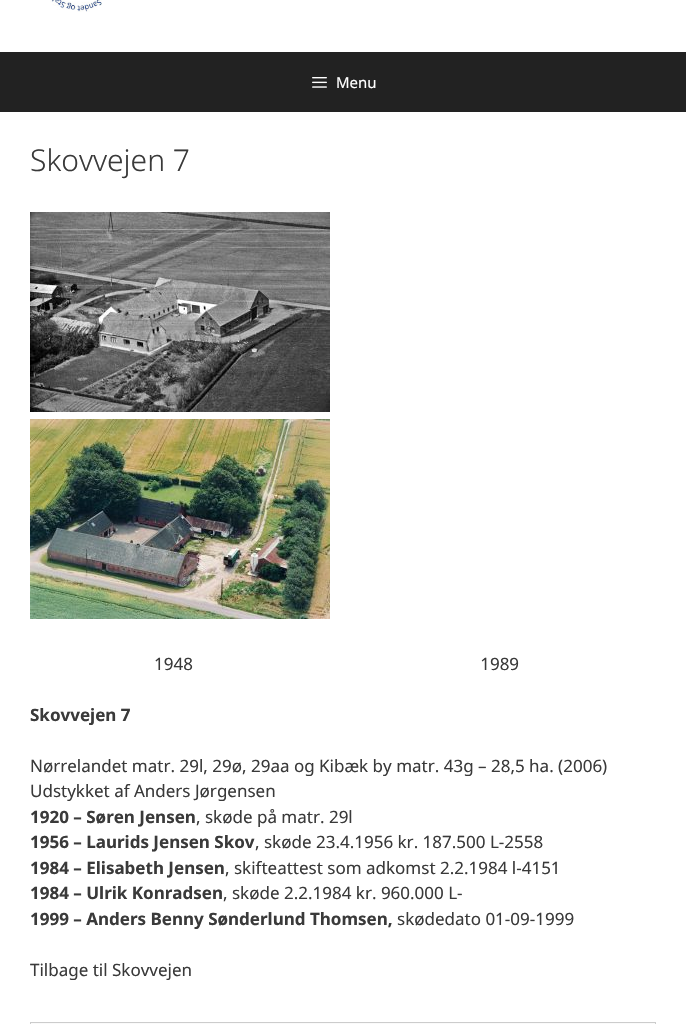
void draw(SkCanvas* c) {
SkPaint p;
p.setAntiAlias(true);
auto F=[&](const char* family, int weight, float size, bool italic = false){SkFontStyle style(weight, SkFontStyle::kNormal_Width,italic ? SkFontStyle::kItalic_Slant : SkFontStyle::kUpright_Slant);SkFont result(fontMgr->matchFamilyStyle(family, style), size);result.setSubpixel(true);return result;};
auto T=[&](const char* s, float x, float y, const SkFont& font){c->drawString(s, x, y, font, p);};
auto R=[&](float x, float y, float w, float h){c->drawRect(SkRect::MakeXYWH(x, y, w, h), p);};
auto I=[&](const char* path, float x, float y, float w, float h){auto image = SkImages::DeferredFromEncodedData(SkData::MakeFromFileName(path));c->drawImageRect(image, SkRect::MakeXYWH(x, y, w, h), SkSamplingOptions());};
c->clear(0xff222222);
p.setColor(0xffffffff);
R(0,0,686,52);
I("1.png",50,0,52,12);
I("2.png",312,77,15,11);
auto f1 = F("Noto Sans",400,15);
T("Menu",336,88,f1);
R(0,112,686,912);
auto f2 = F("Noto Sans",300,30);
p.setColor(0xff3a3a3a);
T("Skovvejen 7",30,171,f2);
I("3.png",30,212,300,200);
I("4.png",30,419,300,200);
auto f3 = F("Noto Sans",400,17);
T("1948                                                                 1989",154,670,f3);
auto f4 = F("Noto Sans",700,17);
T("Skovvejen 7",30,721,f4);
T("Nørrelandet matr. 29l, 29ø, 29aa og Kibæk by matr. 43g – 28,5 ha. (2006)",30,772,f3);
T("Udstykket af Anders Jørgensen",30,797,f3);
T("1920 – Søren Jensen",30,823,f4);
T(", skøde på matr. 29l",196,823,f3);
T("1956 – Laurids Jensen Skov",30,848,f4);
T(", skøde 23.4.1956 kr. 187.500 L-2558",255,848,f3);
T("1984 – Elisabeth Jensen",30,874,f4);
T(", skifteattest som adkomst 2.2.1984 l-4151",225,874,f3);
T("1984 – Ulrik Konradsen",30,899,f4);
T(", skøde 2.2.1984 kr. 960.000 L-",223,899,f3);
T("1999 – Anders Benny Sønderlund Thomsen,",30,925,f4);
T("skødedato 01-09-1999",397,925,f3);
T("Tilbage til Skovvejen",30,976,f3);
p.setColor(0xfffafafa);
c->drawRect(SkRect::MakeXYWH(30.5,1022.5,625,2),p);
p.setStroke(true);
p.setStrokeWidth(1);
p.setColor(0xffcccccc);
c->drawRect(SkRect::MakeXYWH(30.5,1022.5,625,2),p);
}
